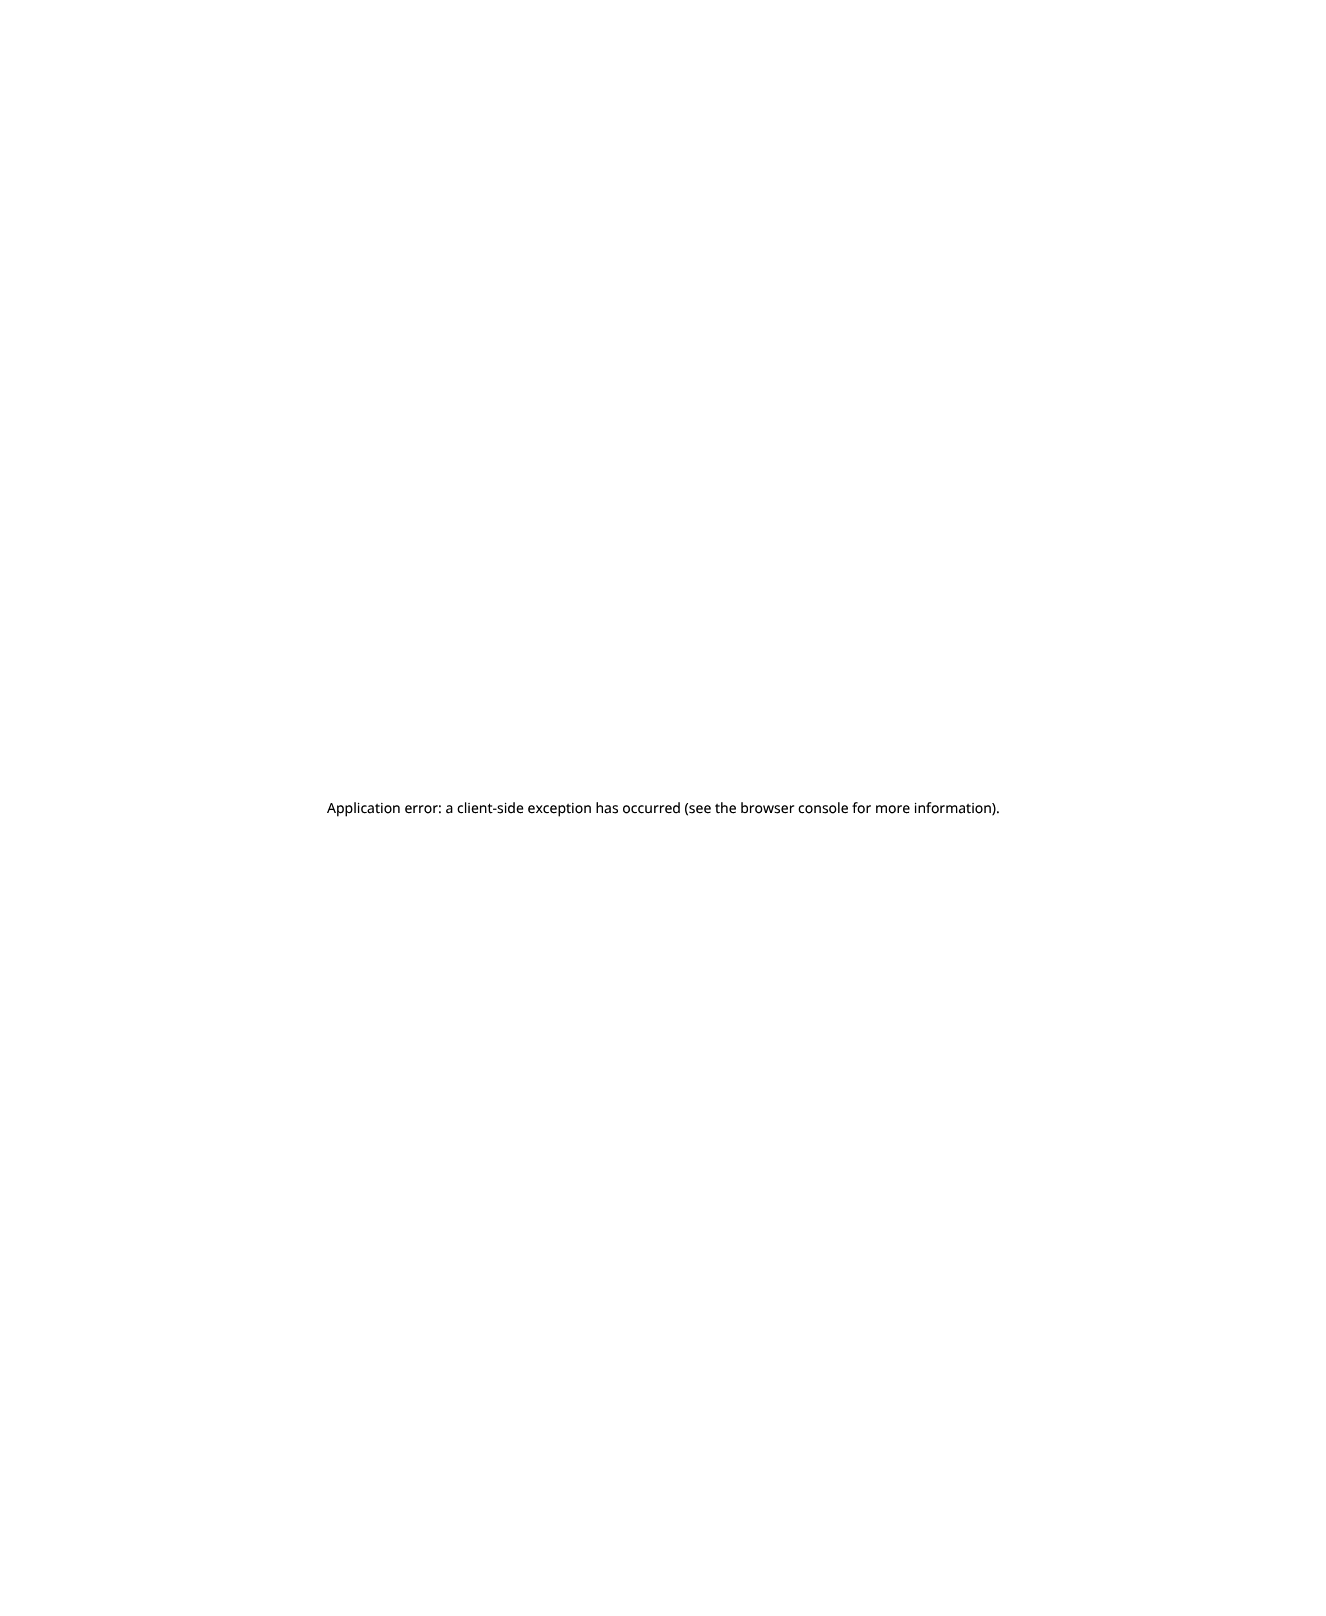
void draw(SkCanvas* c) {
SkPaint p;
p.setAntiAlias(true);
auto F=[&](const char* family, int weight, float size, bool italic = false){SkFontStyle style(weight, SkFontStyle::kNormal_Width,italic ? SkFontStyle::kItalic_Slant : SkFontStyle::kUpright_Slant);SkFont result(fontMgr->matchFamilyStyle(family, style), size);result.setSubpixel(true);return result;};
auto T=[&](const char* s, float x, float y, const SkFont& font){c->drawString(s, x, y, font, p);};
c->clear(0xffffffff);
auto f1 = F("Noto Sans",400,14);
p.setColor(0xff000000);
T("Application error: a client-side exception has occurred (see the browser console for more information).",327,813,f1);
}
